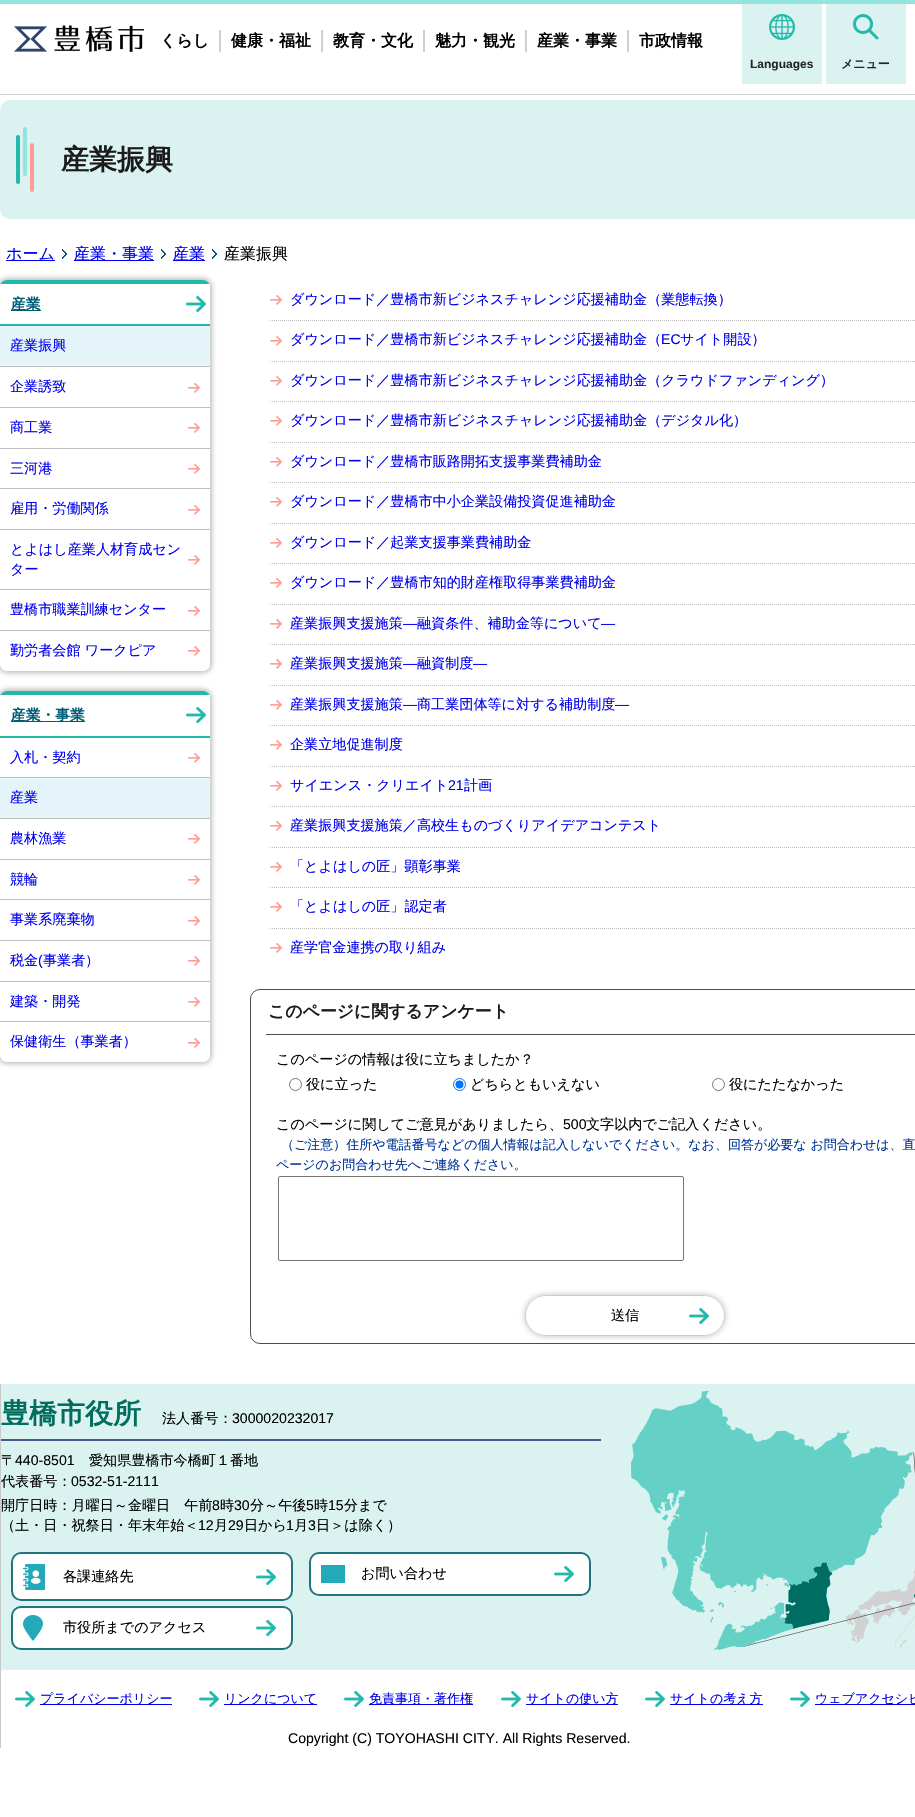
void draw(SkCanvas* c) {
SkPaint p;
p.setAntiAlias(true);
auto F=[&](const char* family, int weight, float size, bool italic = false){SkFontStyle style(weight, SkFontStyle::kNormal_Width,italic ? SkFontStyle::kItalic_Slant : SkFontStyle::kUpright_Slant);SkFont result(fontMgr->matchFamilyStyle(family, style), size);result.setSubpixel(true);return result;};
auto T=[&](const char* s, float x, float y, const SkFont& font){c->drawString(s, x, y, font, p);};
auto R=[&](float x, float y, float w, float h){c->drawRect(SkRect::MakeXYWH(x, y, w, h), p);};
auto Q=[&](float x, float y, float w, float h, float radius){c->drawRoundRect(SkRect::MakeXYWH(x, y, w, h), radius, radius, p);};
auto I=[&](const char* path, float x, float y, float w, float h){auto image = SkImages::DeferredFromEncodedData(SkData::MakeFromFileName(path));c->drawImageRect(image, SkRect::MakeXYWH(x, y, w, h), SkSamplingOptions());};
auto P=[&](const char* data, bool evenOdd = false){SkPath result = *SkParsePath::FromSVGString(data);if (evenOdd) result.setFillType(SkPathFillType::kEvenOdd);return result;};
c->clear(0xffffffff);
p.setColor(0xffcfcfcf);
R(219,30,2,22);
auto f1 = F("WenQuanYi Zen Hei",700,16);
p.setColor(0xff000000);
T("くらし",160,46,f1);
p.setColor(0xffcfcfcf);
R(321,30,2,22);
p.setColor(0xff000000);
T("健康・福祉",231,46,f1);
p.setColor(0xffcfcfcf);
R(423,30,2,22);
p.setColor(0xff000000);
T("教育・文化",333,46,f1);
p.setColor(0xffcfcfcf);
R(525,30,2,22);
p.setColor(0xff000000);
T("魅力・観光",435,46,f1);
p.setColor(0xffcfcfcf);
R(627,30,2,22);
p.setColor(0xff000000);
T("産業・事業",537,46,f1);
T("市政情報",639,46,f1);
p.setColor(0xff92e5dd);
R(0,0,915,4);
p.setColor(0xffcfcfcf);
R(0,94,915,1);
I("1.png",14,25,130,27);
p.setColor(0xffdaf3f0);
R(742,4,80,80);
I("2.png",769,14,26,26);
auto f2 = F("Liberation Sans",700,12);
p.setColor(0xff242525);
T("Languages",750,68,f2);
p.setColor(0xffdaf3f0);
R(826,4,80,80);
I("3.png",853,14,26,26);
auto f3 = F("WenQuanYi Zen Hei",700,12);
p.setColor(0xff242525);
T("メニュー",841,68,f3);
c->save();
c->clipPath(P("M10 100h980c5.5 0 10 4.5 10 10v119c0 5.5-4.5 10-10 10h-980c-5.5 0-10-4.5-10-10v-119c0-5.5 4.5-10 10-10z"),true);
p.setColor(0xffdaf3f0);
Q(0,100,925,119,10);
c->restore();
I("4.png",16,127,18,65);
auto f4 = F("WenQuanYi Zen Hei",700,28);
p.setColor(0xff1c1b1b);
T("産業振興",61,169,f4);
p.setColor(0xff0000ee);
R(6,260,49,1);
auto f5 = F("WenQuanYi Zen Hei",500,16);
T("ホーム",6,259,f5);
I("5.png",62,249,5,10);
R(74,260,80,1);
T("産業・事業",74,259,f5);
I("5.png",161,249,5,10);
R(173,260,32,1);
T("産業",173,259,f5);
I("5.png",212,249,5,10);
p.setColor(0xff000000);
T("産業振興",224,259,f5);
c->save();
c->clipPath(P("M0 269h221v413h-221zm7 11h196c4 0 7 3 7 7v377c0 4-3 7-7 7h-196c-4 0-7-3-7-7v-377c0-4 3-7 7-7z",true),true);
p.setColor(0xffbfbfbf);
p.setMaskFilter(SkMaskFilter::MakeBlur(kNormal_SkBlurStyle, 2.5));
c->drawRoundRect(SkRect::MakeXYWH(-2,278,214,395),9,9,p);
p.setMaskFilter(nullptr);
c->restore();
c->save();
c->clipPath(P("M7 280h196c4 0 7 3 7 7v377c0 4-3 7-7 7h-196c-4 0-7-3-7-7v-377c0-4 3-7 7-7z"),true);
p.setColor(0xff20b9aa);
R(0,280,210,4);
c->restore();
R(0,324,210,2);
p.setColor(0xffffffff);
R(209,284,1,2);
I("6.png",186,296,20,16);
p.setColor(0xff005d77);
R(11,310,30,1);
auto f6 = F("WenQuanYi Zen Hei",700,14.75);
T("産業",11,309,f6);
p.setColor(0xffbfbfbf);
R(0,366,210,1);
p.setColor(0xffe5f4f9);
R(0,326,210,40);
auto f7 = F("WenQuanYi Zen Hei",500,14.1);
p.setColor(0xff0000ee);
T("産業振興",10,350,f7);
I("7.png",188,383,12,10);
p.setColor(0xffbfbfbf);
R(0,407,210,1);
p.setColor(0xff0000ee);
T("企業誘致",10,391,f7);
I("7.png",188,423,12,10);
p.setColor(0xffbfbfbf);
R(0,448,210,1);
p.setColor(0xff0000ee);
T("商工業",10,432,f7);
I("7.png",188,464,12,10);
p.setColor(0xffbfbfbf);
R(0,488,210,1);
p.setColor(0xff0000ee);
T("三河港",10,473,f7);
I("7.png",188,505,12,10);
p.setColor(0xffbfbfbf);
R(0,529,210,1);
p.setColor(0xff0000ee);
T("雇用・労働関係",10,513,f7);
I("7.png",188,555,12,10);
p.setColor(0xffbfbfbf);
R(0,589,210,1);
p.setColor(0xff0000ee);
T("とよはし産業人材育成セン",10,554,f7);
T("ター",10,574,f7);
I("7.png",188,606,12,10);
p.setColor(0xffbfbfbf);
R(0,630,210,1);
p.setColor(0xff0000ee);
T("豊橋市職業訓練センター",10,614,f7);
I("7.png",188,646,12,10);
T("勤労者会館 ワークピア",10,655,f7);
c->save();
c->clipPath(P("M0 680h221v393h-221zm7 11h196c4 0 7 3 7 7v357c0 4-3 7-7 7h-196c-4 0-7-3-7-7v-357c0-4 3-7 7-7z",true),true);
p.setColor(0xffbfbfbf);
p.setMaskFilter(SkMaskFilter::MakeBlur(kNormal_SkBlurStyle, 2.5));
c->drawRoundRect(SkRect::MakeXYWH(-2,689,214,375),9,9,p);
p.setMaskFilter(nullptr);
c->restore();
c->save();
c->clipPath(P("M7 691h196c4 0 7 3 7 7v357c0 4-3 7-7 7h-196c-4 0-7-3-7-7v-357c0-4 3-7 7-7z"),true);
p.setColor(0xff20b9aa);
R(0,691,210,4);
c->restore();
R(0,736,210,2);
p.setColor(0xffffffff);
R(209,695,1,2);
I("6.png",186,707,20,16);
p.setColor(0xff005d77);
R(11,721,74,1);
T("産業・事業",11,720,f6);
I("7.png",188,753,12,10);
p.setColor(0xffbfbfbf);
R(0,777,210,1);
p.setColor(0xff0000ee);
T("入札・契約",10,762,f7);
p.setColor(0xffbfbfbf);
R(0,818,210,1);
p.setColor(0xffe5f4f9);
R(0,778,210,40);
p.setColor(0xff0000ee);
T("産業",10,802,f7);
I("7.png",188,834,12,10);
p.setColor(0xffbfbfbf);
R(0,859,210,1);
p.setColor(0xff0000ee);
T("農林漁業",10,843,f7);
I("7.png",188,875,12,10);
p.setColor(0xffbfbfbf);
R(0,899,210,1);
p.setColor(0xff0000ee);
T("競輪",10,884,f7);
I("7.png",188,916,12,10);
p.setColor(0xffbfbfbf);
R(0,940,210,1);
p.setColor(0xff0000ee);
T("事業系廃棄物",10,924,f7);
I("7.png",188,956,12,10);
p.setColor(0xffbfbfbf);
R(0,981,210,1);
p.setColor(0xff0000ee);
T("税金",10,965,f7);
auto f8 = F("Liberation Sans",400,14.1);
T("(",38,965,f8);
T("事業者）",43,965,f7);
I("7.png",188,997,12,10);
p.setColor(0xffbfbfbf);
R(0,1021,210,1);
p.setColor(0xff0000ee);
T("建築・開発",10,1006,f7);
I("7.png",188,1038,12,10);
T("保健衛生（事業者）",10,1046,f7);
p.setStroke(true);
p.setStrokeWidth(1);
p.setColor(0xffc0c0c0);
p.setPathEffect(SkDashPathEffect::Make({{1,1}}, 0));
c->drawPath(P("M270 320.5h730"),p);
p.setPathEffect(nullptr);
I("7.png",270,295,12,10);
p.setStroke(false);
p.setColor(0xff0000ee);
T("ダウンロード／豊橋市新ビジネスチャレンジ応援補助金（業態転換）",290,304,f7);
p.setStroke(true);
p.setColor(0xffc0c0c0);
p.setPathEffect(SkDashPathEffect::Make({{1,1}}, 0));
c->drawPath(P("M270 361.5h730"),p);
p.setPathEffect(nullptr);
I("7.png",270,336,12,10);
p.setStroke(false);
p.setColor(0xff0000ee);
T("ダウンロード／豊橋市新ビジネスチャレンジ応援補助金（",290,344,f7);
T("EC",661,344,f8);
T("サイト開設）",680,344,f7);
p.setStroke(true);
p.setColor(0xffc0c0c0);
p.setPathEffect(SkDashPathEffect::Make({{1,1}}, 0));
c->drawPath(P("M270 401.5h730"),p);
p.setPathEffect(nullptr);
I("7.png",270,376,12,10);
p.setStroke(false);
p.setColor(0xff0000ee);
T("ダウンロード／豊橋市新ビジネスチャレンジ応援補助金（クラウドファンディング）",290,385,f7);
p.setStroke(true);
p.setColor(0xffc0c0c0);
p.setPathEffect(SkDashPathEffect::Make({{1,1}}, 0));
c->drawPath(P("M270 442.5h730"),p);
p.setPathEffect(nullptr);
I("7.png",270,416,12,10);
p.setStroke(false);
p.setColor(0xff0000ee);
T("ダウンロード／豊橋市新ビジネスチャレンジ応援補助金（デジタル化）",290,425,f7);
p.setStroke(true);
p.setColor(0xffc0c0c0);
p.setPathEffect(SkDashPathEffect::Make({{1,1}}, 0));
c->drawPath(P("M270 482.5h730"),p);
p.setPathEffect(nullptr);
I("7.png",270,457,12,10);
p.setStroke(false);
p.setColor(0xff0000ee);
T("ダウンロード／豊橋市販路開拓支援事業費補助金",290,466,f7);
p.setStroke(true);
p.setColor(0xffc0c0c0);
p.setPathEffect(SkDashPathEffect::Make({{1,1}}, 0));
c->drawPath(P("M270 523.5h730"),p);
p.setPathEffect(nullptr);
I("7.png",270,497,12,10);
p.setStroke(false);
p.setColor(0xff0000ee);
T("ダウンロード／豊橋市中小企業設備投資促進補助金",290,506,f7);
p.setStroke(true);
p.setColor(0xffc0c0c0);
p.setPathEffect(SkDashPathEffect::Make({{1,1}}, 0));
c->drawPath(P("M270 563.5h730"),p);
p.setPathEffect(nullptr);
I("7.png",270,538,12,10);
p.setStroke(false);
p.setColor(0xff0000ee);
T("ダウンロード／起業支援事業費補助金",290,547,f7);
p.setStroke(true);
p.setColor(0xffc0c0c0);
p.setPathEffect(SkDashPathEffect::Make({{1,1}}, 0));
c->drawPath(P("M270 604.5h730"),p);
p.setPathEffect(nullptr);
I("7.png",270,578,12,10);
p.setStroke(false);
p.setColor(0xff0000ee);
T("ダウンロード／豊橋市知的財産権取得事業費補助金",290,587,f7);
p.setStroke(true);
p.setColor(0xffc0c0c0);
p.setPathEffect(SkDashPathEffect::Make({{1,1}}, 0));
c->drawPath(P("M270 644.5h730"),p);
p.setPathEffect(nullptr);
I("7.png",270,619,12,10);
p.setStroke(false);
p.setColor(0xff0000ee);
T("産業振興支援施策",290,628,f7);
T("―",403,628,f8);
T("融資条件、補助金等について",417,628,f7);
T("―",601,628,f8);
p.setStroke(true);
p.setColor(0xffc0c0c0);
p.setPathEffect(SkDashPathEffect::Make({{1,1}}, 0));
c->drawPath(P("M270 685.5h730"),p);
p.setPathEffect(nullptr);
I("7.png",270,659,12,10);
p.setStroke(false);
p.setColor(0xff0000ee);
T("産業振興支援施策",290,668,f7);
T("―",403,668,f8);
T("融資制度",417,668,f7);
T("―",473,668,f8);
p.setStroke(true);
p.setColor(0xffc0c0c0);
p.setPathEffect(SkDashPathEffect::Make({{1,1}}, 0));
c->drawPath(P("M270 725.5h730"),p);
p.setPathEffect(nullptr);
I("7.png",270,700,12,10);
p.setStroke(false);
p.setColor(0xff0000ee);
T("産業振興支援施策",290,709,f7);
T("―",403,709,f8);
T("商工業団体等に対する補助制度",417,709,f7);
T("―",615,709,f8);
p.setStroke(true);
p.setColor(0xffc0c0c0);
p.setPathEffect(SkDashPathEffect::Make({{1,1}}, 0));
c->drawPath(P("M270 766.5h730"),p);
p.setPathEffect(nullptr);
I("7.png",270,740,12,10);
p.setStroke(false);
p.setColor(0xff0000ee);
T("企業立地促進制度",290,749,f7);
p.setStroke(true);
p.setColor(0xffc0c0c0);
p.setPathEffect(SkDashPathEffect::Make({{1,1}}, 0));
c->drawPath(P("M270 806.5h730"),p);
p.setPathEffect(nullptr);
I("7.png",270,781,12,10);
p.setStroke(false);
p.setColor(0xff0000ee);
T("サイエンス・クリエイト",290,790,f7);
T("21",448,790,f8);
T("計画",464,790,f7);
p.setStroke(true);
p.setColor(0xffc0c0c0);
p.setPathEffect(SkDashPathEffect::Make({{1,1}}, 0));
c->drawPath(P("M270 847.5h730"),p);
p.setPathEffect(nullptr);
I("7.png",270,821,12,10);
p.setStroke(false);
p.setColor(0xff0000ee);
T("産業振興支援施策／高校生ものづくりアイデアコンテスト",290,830,f7);
p.setStroke(true);
p.setColor(0xffc0c0c0);
p.setPathEffect(SkDashPathEffect::Make({{1,1}}, 0));
c->drawPath(P("M270 887.5h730"),p);
p.setPathEffect(nullptr);
I("7.png",270,862,12,10);
p.setStroke(false);
p.setColor(0xff0000ee);
T("「とよはしの匠」顕彰事業",290,871,f7);
p.setStroke(true);
p.setColor(0xffc0c0c0);
p.setPathEffect(SkDashPathEffect::Make({{1,1}}, 0));
c->drawPath(P("M270 928.5h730"),p);
p.setPathEffect(nullptr);
I("7.png",270,902,12,10);
p.setStroke(false);
p.setColor(0xff0000ee);
T("「とよはしの匠」認定者",290,911,f7);
I("7.png",270,943,12,10);
T("産学官金連携の取り組み",290,952,f7);
p.setStroke(true);
p.setColor(0xff4c4c4c);
c->drawRoundRect(SkRect::MakeXYWH(250.5,989.5,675,354),9.5,9.5,p);
p.setStroke(false);
R(266,1034,649,1);
auto f9 = F("WenQuanYi Zen Hei",700,16.9);
p.setColor(0xff1c1b1b);
T("このページに関するアンケート",268,1017,f9);
p.setColor(0xff000000);
T("このページの情報は役に立ちましたか？",276,1064,f7);
p.setStroke(true);
p.setColor(0xff767676);
c->drawCircle(295.5,1084.5,6,p);
p.setStroke(false);
p.setColor(0xff000000);
T("役に立った",306,1089,f7);
p.setStroke(true);
p.setColor(0xff0075ff);
c->drawCircle(459.5,1084.5,6,p);
p.setStroke(false);
c->drawCircle(459.5,1084.5,4,p);
p.setColor(0xff000000);
T("どちらともいえない",470,1089,f7);
p.setStroke(true);
p.setColor(0xff767676);
c->drawCircle(718.5,1084.5,6,p);
p.setStroke(false);
p.setColor(0xff000000);
T("役にたたなかった",729,1089,f7);
T("このページに関してご意見がありましたら、",276,1129,f7);
T("500",563,1129,f8);
T("文字以内でご記入ください。",586,1129,f7);
auto f10 = F("WenQuanYi Zen Hei",500,13);
p.setColor(0xff003399);
T("（ご注意）住所や電話番号などの個人情報は記入しないでください。なお、回答が必要な お問合わせは、直",281,1149,f10);
T("ページのお問合わせ先へご連絡ください。",276,1169,f10);
p.setStroke(true);
p.setColor(0xff767676);
c->drawRoundRect(SkRect::MakeXYWH(278.5,1176.5,405,84),1.5,1.5,p);
c->save();
c->clipPath(P("M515 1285h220v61h-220zm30.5 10h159c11.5 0 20.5 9 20.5 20.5c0 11.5-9 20.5-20.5 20.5h-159c-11.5 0-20.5-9-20.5-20.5c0-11.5 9-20.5 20.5-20.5z",true),true);
p.setStroke(false);
p.setColor(0xffcfcfcf);
p.setMaskFilter(SkMaskFilter::MakeBlur(kNormal_SkBlurStyle, 2.5));
c->drawRoundRect(SkRect::MakeXYWH(524,1294,202,43),21.5,21.5,p);
p.setMaskFilter(nullptr);
c->restore();
I("6.png",689,1308,20,16);
p.setStroke(true);
p.setColor(0xffcbcbcb);
c->drawRoundRect(SkRect::MakeXYWH(525.5,1295.5,199,40),20,20,p);
p.setStroke(false);
p.setColor(0xff000000);
T("送信",611,1320,f7);
p.setColor(0xffc9c9c9);
R(0,1384,1,364);
p.setColor(0xffdaf3f0);
R(1,1384,914,286);
I("8.png",631,1391,284,259);
p.setColor(0xff485a8d);
R(1,1439,600,2);
p.setColor(0xff006d5f);
T("豊橋市役所",1,1423,f4);
p.setColor(0xff000000);
T("法人番号：",162,1423,f7);
T("3000020232017",232,1423,f8);
T("〒",1,1465,f7);
T("440-8501",15,1465,f8);
T("愛知県豊橋市今橋町１番地",89,1465,f7);
T("代表番号：",1,1486,f7);
T("0532-51-2111",71,1486,f8);
T("開庁日時：月曜日～金曜日　午前",1,1510,f7);
T("8",212,1510,f8);
T("時",220,1510,f7);
T("30",234,1510,f8);
T("分～午後",250,1510,f7);
T("5",306,1510,f8);
T("時",314,1510,f7);
T("15",328,1510,f8);
T("分まで",344,1510,f7);
T("（土・日・祝祭日・年末年始＜",1,1530,f7);
T("12",198,1530,f8);
T("月",214,1530,f7);
T("29",228,1530,f8);
T("日から",244,1530,f7);
T("1",286,1530,f8);
T("月",294,1530,f7);
T("3",308,1530,f8);
T("日＞は除く）",316,1530,f7);
p.setColor(0xffffffff);
Q(11,1552,282,49,10);
I("6.png",256,1569,20,16);
p.setStroke(true);
p.setStrokeWidth(2);
p.setColor(0xff1f7480);
c->drawRoundRect(SkRect::MakeXYWH(12,1553,280,47),9,9,p);
I("9.png",23,1564,22,26);
p.setStroke(false);
p.setColor(0xff000000);
T("各課連絡先",63,1581,f7);
p.setColor(0xffffffff);
Q(309,1552,282,44,10);
I("6.png",554,1566,20,16);
p.setStroke(true);
p.setColor(0xff1f7480);
c->drawRoundRect(SkRect::MakeXYWH(310,1553,280,42),9,9,p);
p.setStroke(false);
p.setColor(0xff24a9ba);
R(321,1565,24,18);
p.setColor(0xff000000);
T("お問い合わせ",361,1578,f7);
p.setColor(0xffffffff);
Q(11,1606,282,44,10);
I("6.png",256,1620,20,16);
p.setStroke(true);
p.setColor(0xff1f7480);
c->drawRoundRect(SkRect::MakeXYWH(12,1607,280,42),9,9,p);
I("10.png",23,1615,20,26);
p.setStroke(false);
p.setColor(0xff000000);
T("市役所までのアクセス",63,1632,f7);
I("6.png",15,1691,20,16);
p.setColor(0xff0000ee);
R(40,1704,132,1);
T("プライバシーポリシー",40,1703,f10);
I("6.png",199,1691,20,16);
R(224,1704,93,1);
T("リンクについて",224,1703,f10);
I("6.png",344,1691,20,16);
R(369,1704,104,1);
T("免責事項・著作権",369,1703,f10);
I("6.png",501,1691,20,16);
R(526,1704,92,1);
T("サイトの使い方",526,1703,f10);
I("6.png",645,1691,20,16);
R(670,1704,93,1);
T("サイトの考え方",670,1703,f10);
I("6.png",790,1691,20,16);
R(815,1704,100,1);
T("ウェブアクセシビ",815,1703,f10);
p.setColor(0xff000000);
T("Copyright (C) TOYOHASHI CITY. All Rights Reserved.",288,1743,f8);
}
